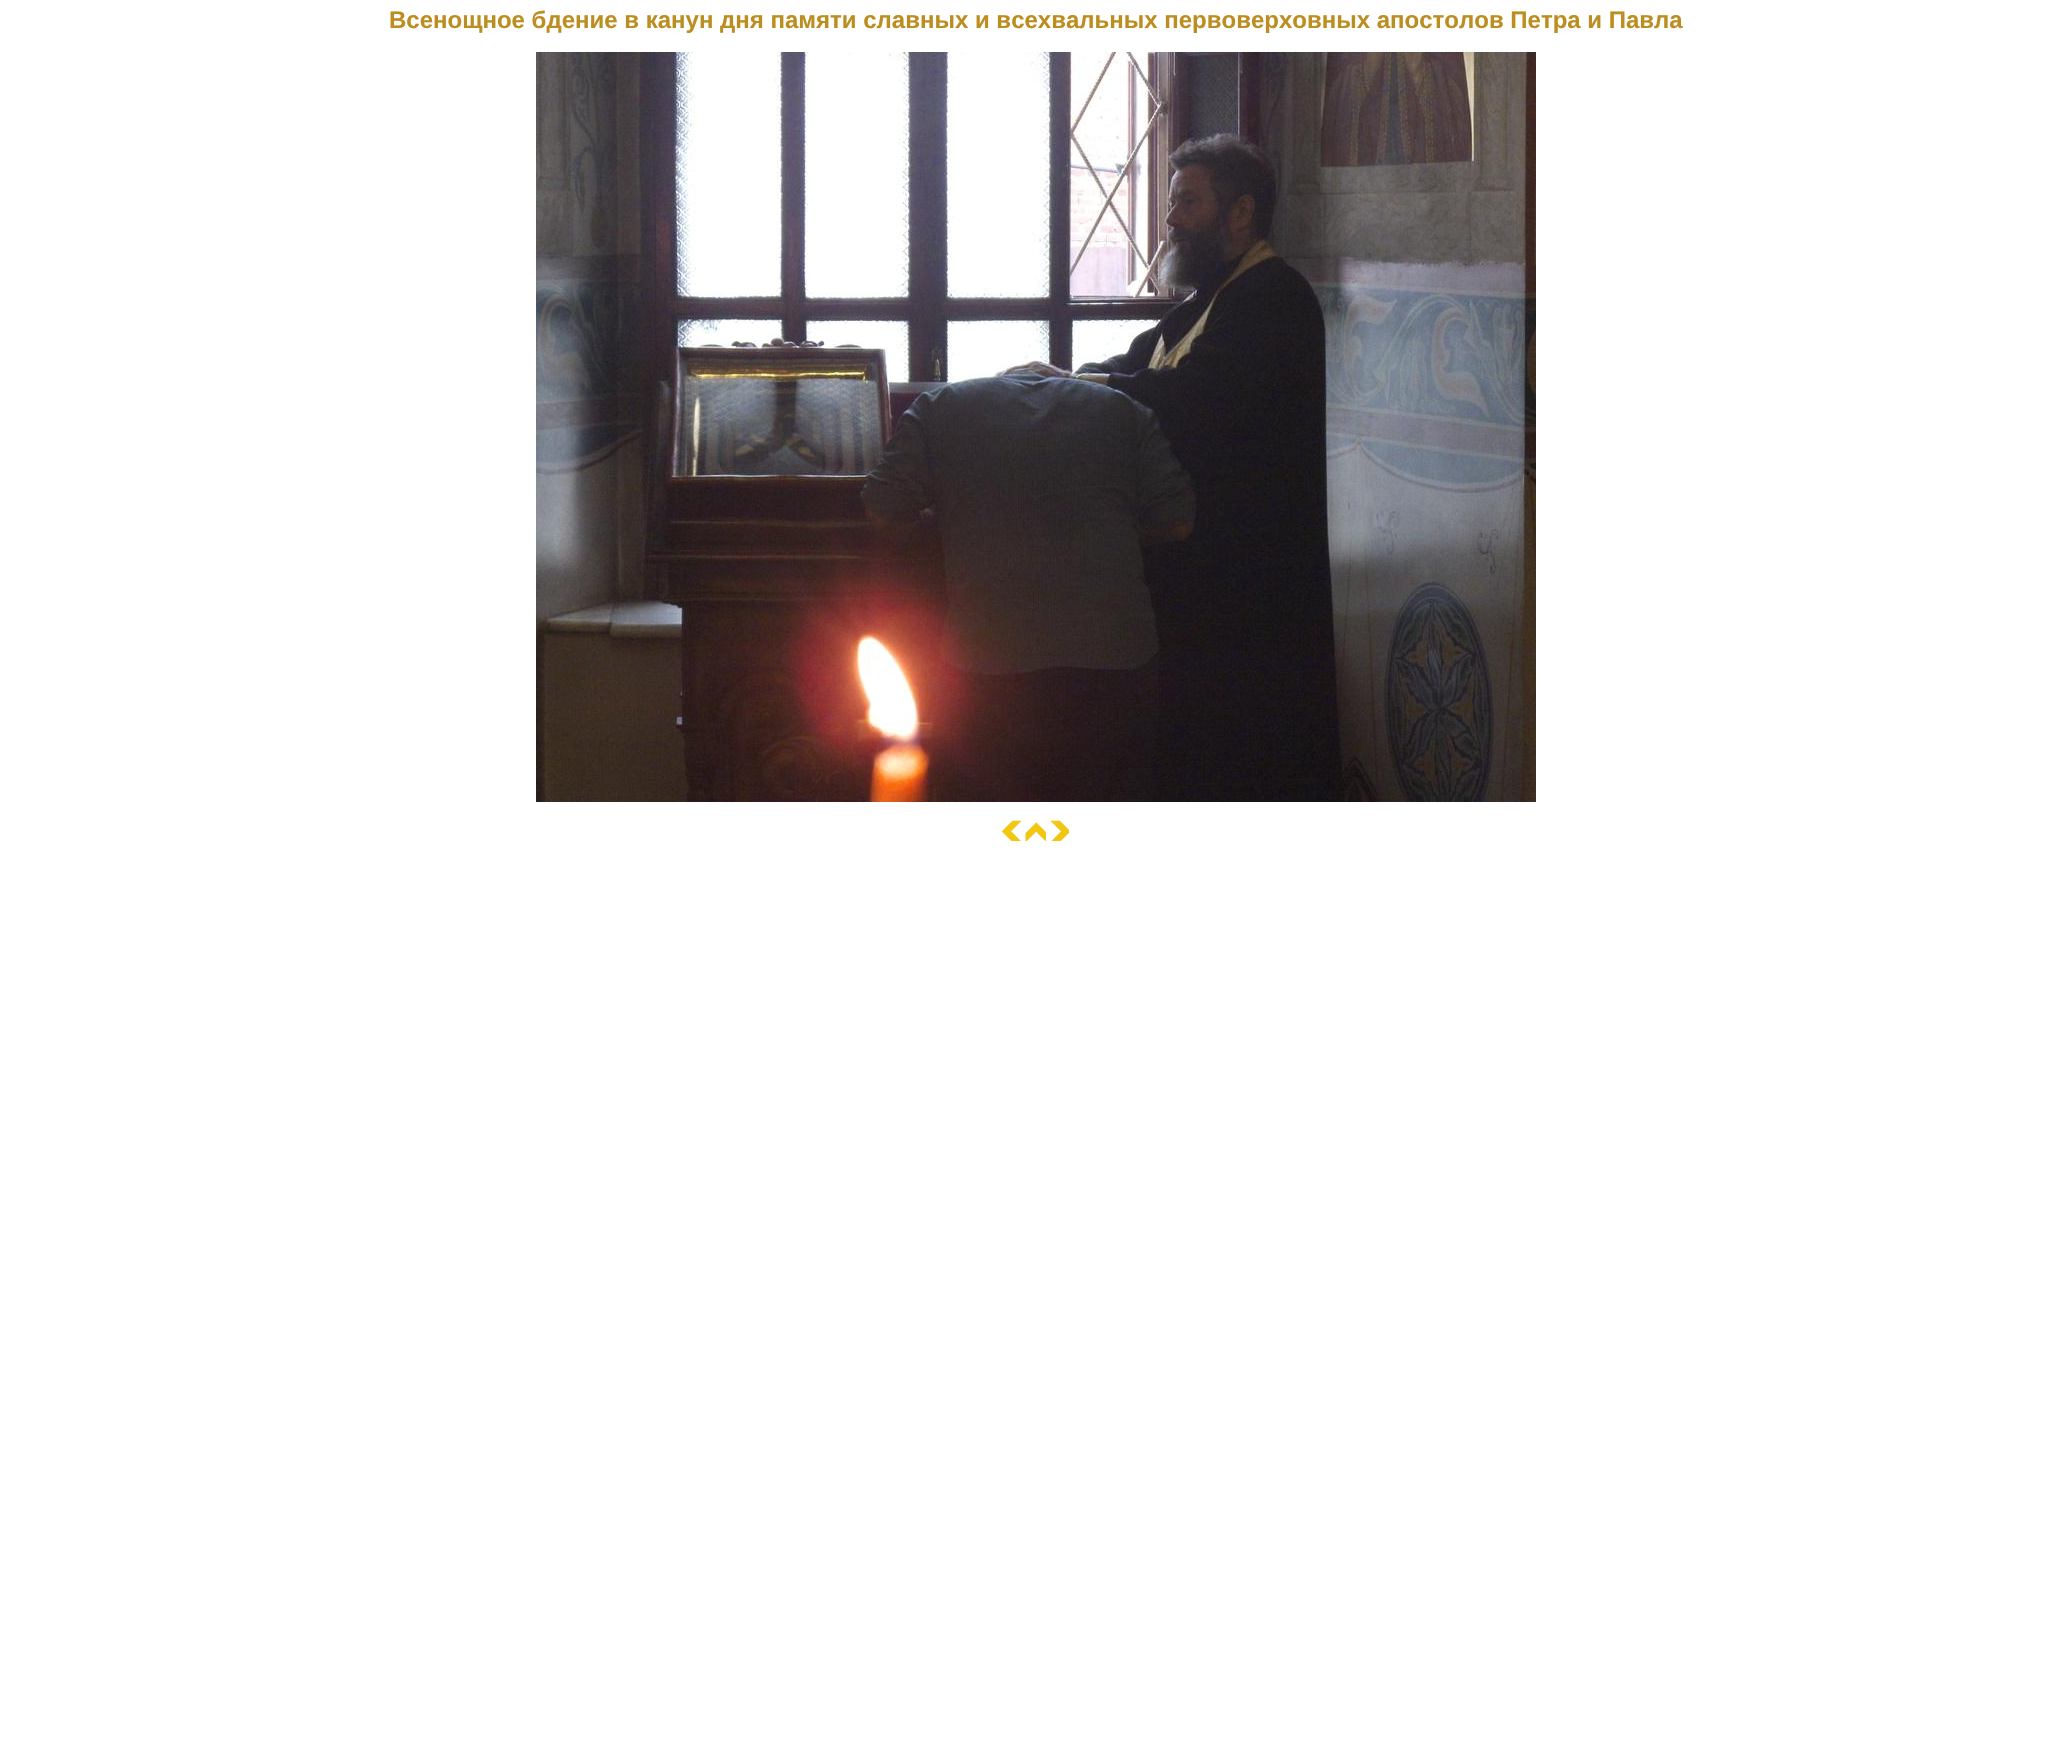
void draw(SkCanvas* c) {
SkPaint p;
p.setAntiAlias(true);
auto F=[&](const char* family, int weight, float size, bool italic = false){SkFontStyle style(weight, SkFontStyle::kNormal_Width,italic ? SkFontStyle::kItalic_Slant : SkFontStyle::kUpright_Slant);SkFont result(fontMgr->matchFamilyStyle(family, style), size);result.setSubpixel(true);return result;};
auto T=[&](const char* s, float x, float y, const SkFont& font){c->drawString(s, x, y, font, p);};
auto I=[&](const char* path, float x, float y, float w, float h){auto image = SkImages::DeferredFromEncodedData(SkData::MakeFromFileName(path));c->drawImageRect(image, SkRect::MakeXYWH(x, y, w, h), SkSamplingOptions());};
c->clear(0xffffffff);
auto f1 = F("Liberation Sans",700,24);
p.setColor(0xffbc8d1f);
T("Всенощное бдение в канун дня памяти славных и всехвальных первоверховных апостолов Петра и Павла",389,28,f1);
I("1.png",536,52,1000,750);
I("2.png",1002,820,19,21);
I("3.png",1025,822,21,19);
I("4.png",1050,820,19,21);
}
